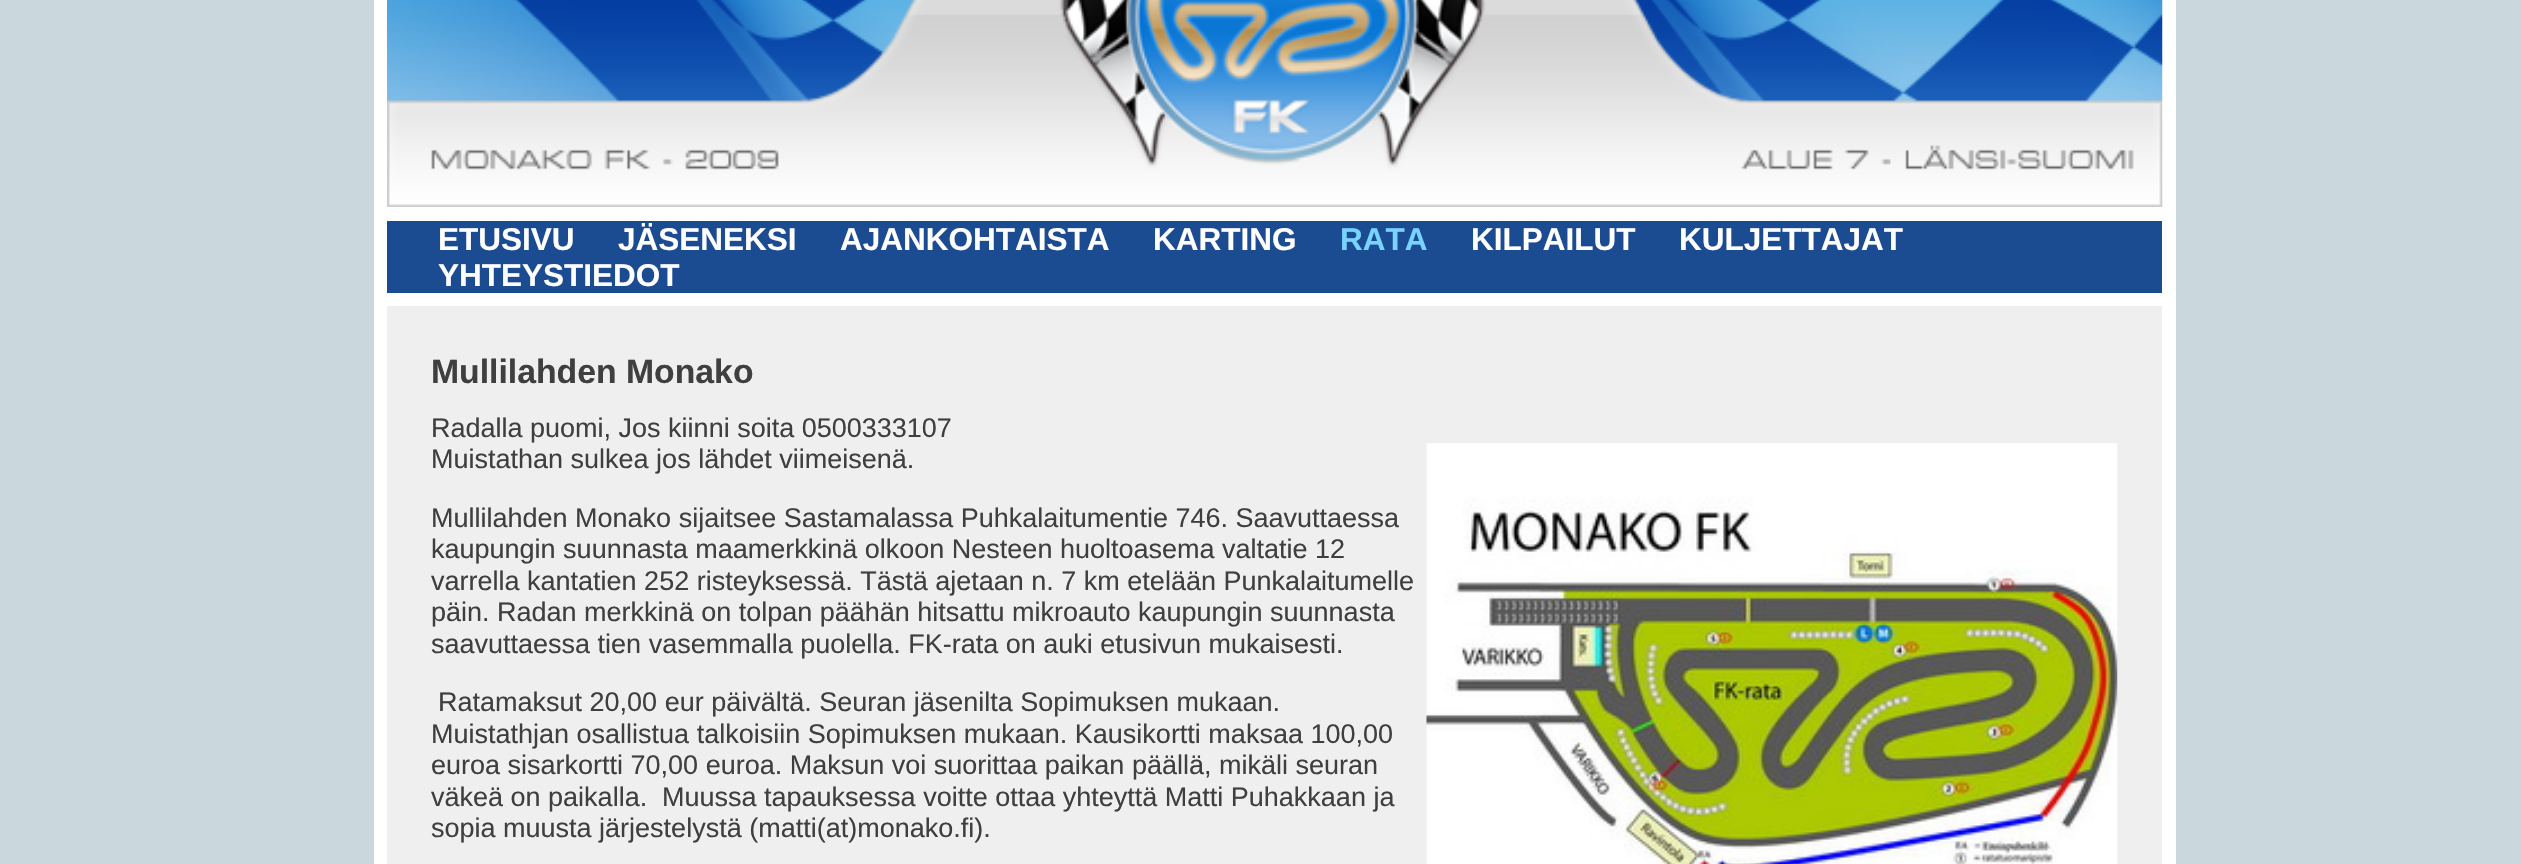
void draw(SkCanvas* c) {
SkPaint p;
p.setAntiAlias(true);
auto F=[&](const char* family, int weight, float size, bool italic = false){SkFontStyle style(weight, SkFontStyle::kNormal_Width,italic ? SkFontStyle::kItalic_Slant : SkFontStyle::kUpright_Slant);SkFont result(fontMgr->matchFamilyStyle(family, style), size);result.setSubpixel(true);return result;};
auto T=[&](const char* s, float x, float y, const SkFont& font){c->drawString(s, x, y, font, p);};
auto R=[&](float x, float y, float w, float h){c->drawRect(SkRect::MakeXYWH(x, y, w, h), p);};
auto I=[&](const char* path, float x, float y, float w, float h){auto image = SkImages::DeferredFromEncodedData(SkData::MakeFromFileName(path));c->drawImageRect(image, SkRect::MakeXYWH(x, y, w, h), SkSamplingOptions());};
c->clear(0xffcad8dd);
p.setStroke(true);
p.setStrokeWidth(14);
p.setColor(0xffffffff);
c->drawRect(SkRect::MakeXYWH(381,-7,1788,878),p);
p.setStroke(false);
R(388,207,1774,14);
I("1.png",387,0,1776,207);
p.setColor(0xff1b4b90);
R(387,221,1775,72);
p.setColor(0xffffffff);
R(388,293,1774,13);
auto f1 = F("Liberation Sans",700,31.5);
T("ETUSIVU",438,250,f1);
T("JÄSENEKSI",618,250,f1);
T("AJANKOHTAISTA",840,250,f1);
T("KARTING",1153,250,f1);
p.setColor(0xff78d4ff);
T("RATA",1340,250,f1);
p.setColor(0xffffffff);
T("KILPAILUT",1471,250,f1);
T("KULJETTAJAT",1679,250,f1);
T("YHTEYSTIEDOT",438,286,f1);
p.setColor(0xffefefef);
R(387,306,1775,558);
auto f2 = F("Liberation Sans",700,33.75);
p.setColor(0xff3f3f3f);
T("Mullilahden Monako",431,383,f2);
auto f3 = F("Liberation Sans",400,27);
T("Radalla puomi, Jos kiinni soita 0500333107",431,437,f3);
T("Muistathan sulkea jos lähdet viimeisenä.",431,468,f3);
I("2.png",1426,443,692,421);
T("Mullilahden Monako sijaitsee Sastamalassa Puhkalaitumentie 746. Saavuttaessa",431,527,f3);
T("kaupungin suunnasta maamerkkinä olkoon Nesteen huoltoasema valtatie 12",431,558,f3);
T("varrella kantatien 252 risteyksessä. Tästä ajetaan n. 7 km etelään Punkalaitumelle",431,590,f3);
T("päin. Radan merkkinä on tolpan päähän hitsattu mikroauto kaupungin suunnasta",431,621,f3);
T("saavuttaessa tien vasemmalla puolella. FK-rata on auki etusivun mukaisesti.",431,653,f3);
T("Ratamaksut 20,00 eur päivältä. Seuran jäsenilta Sopimuksen mukaan.",438,711,f3);
T("Muistathjan osallistua talkoisiin Sopimuksen mukaan. Kausikortti maksaa 100,00",431,743,f3);
T("euroa sisarkortti 70,00 euroa. Maksun voi suorittaa paikan päällä, mikäli seuran",431,774,f3);
T("väkeä on paikalla.",431,806,f3);
T("Muussa tapauksessa voitte ottaa yhteyttä Matti Puhakkaan ja",662,806,f3);
T("sopia muusta järjestelystä (matti(at)monako.fi).",431,837,f3);
}
